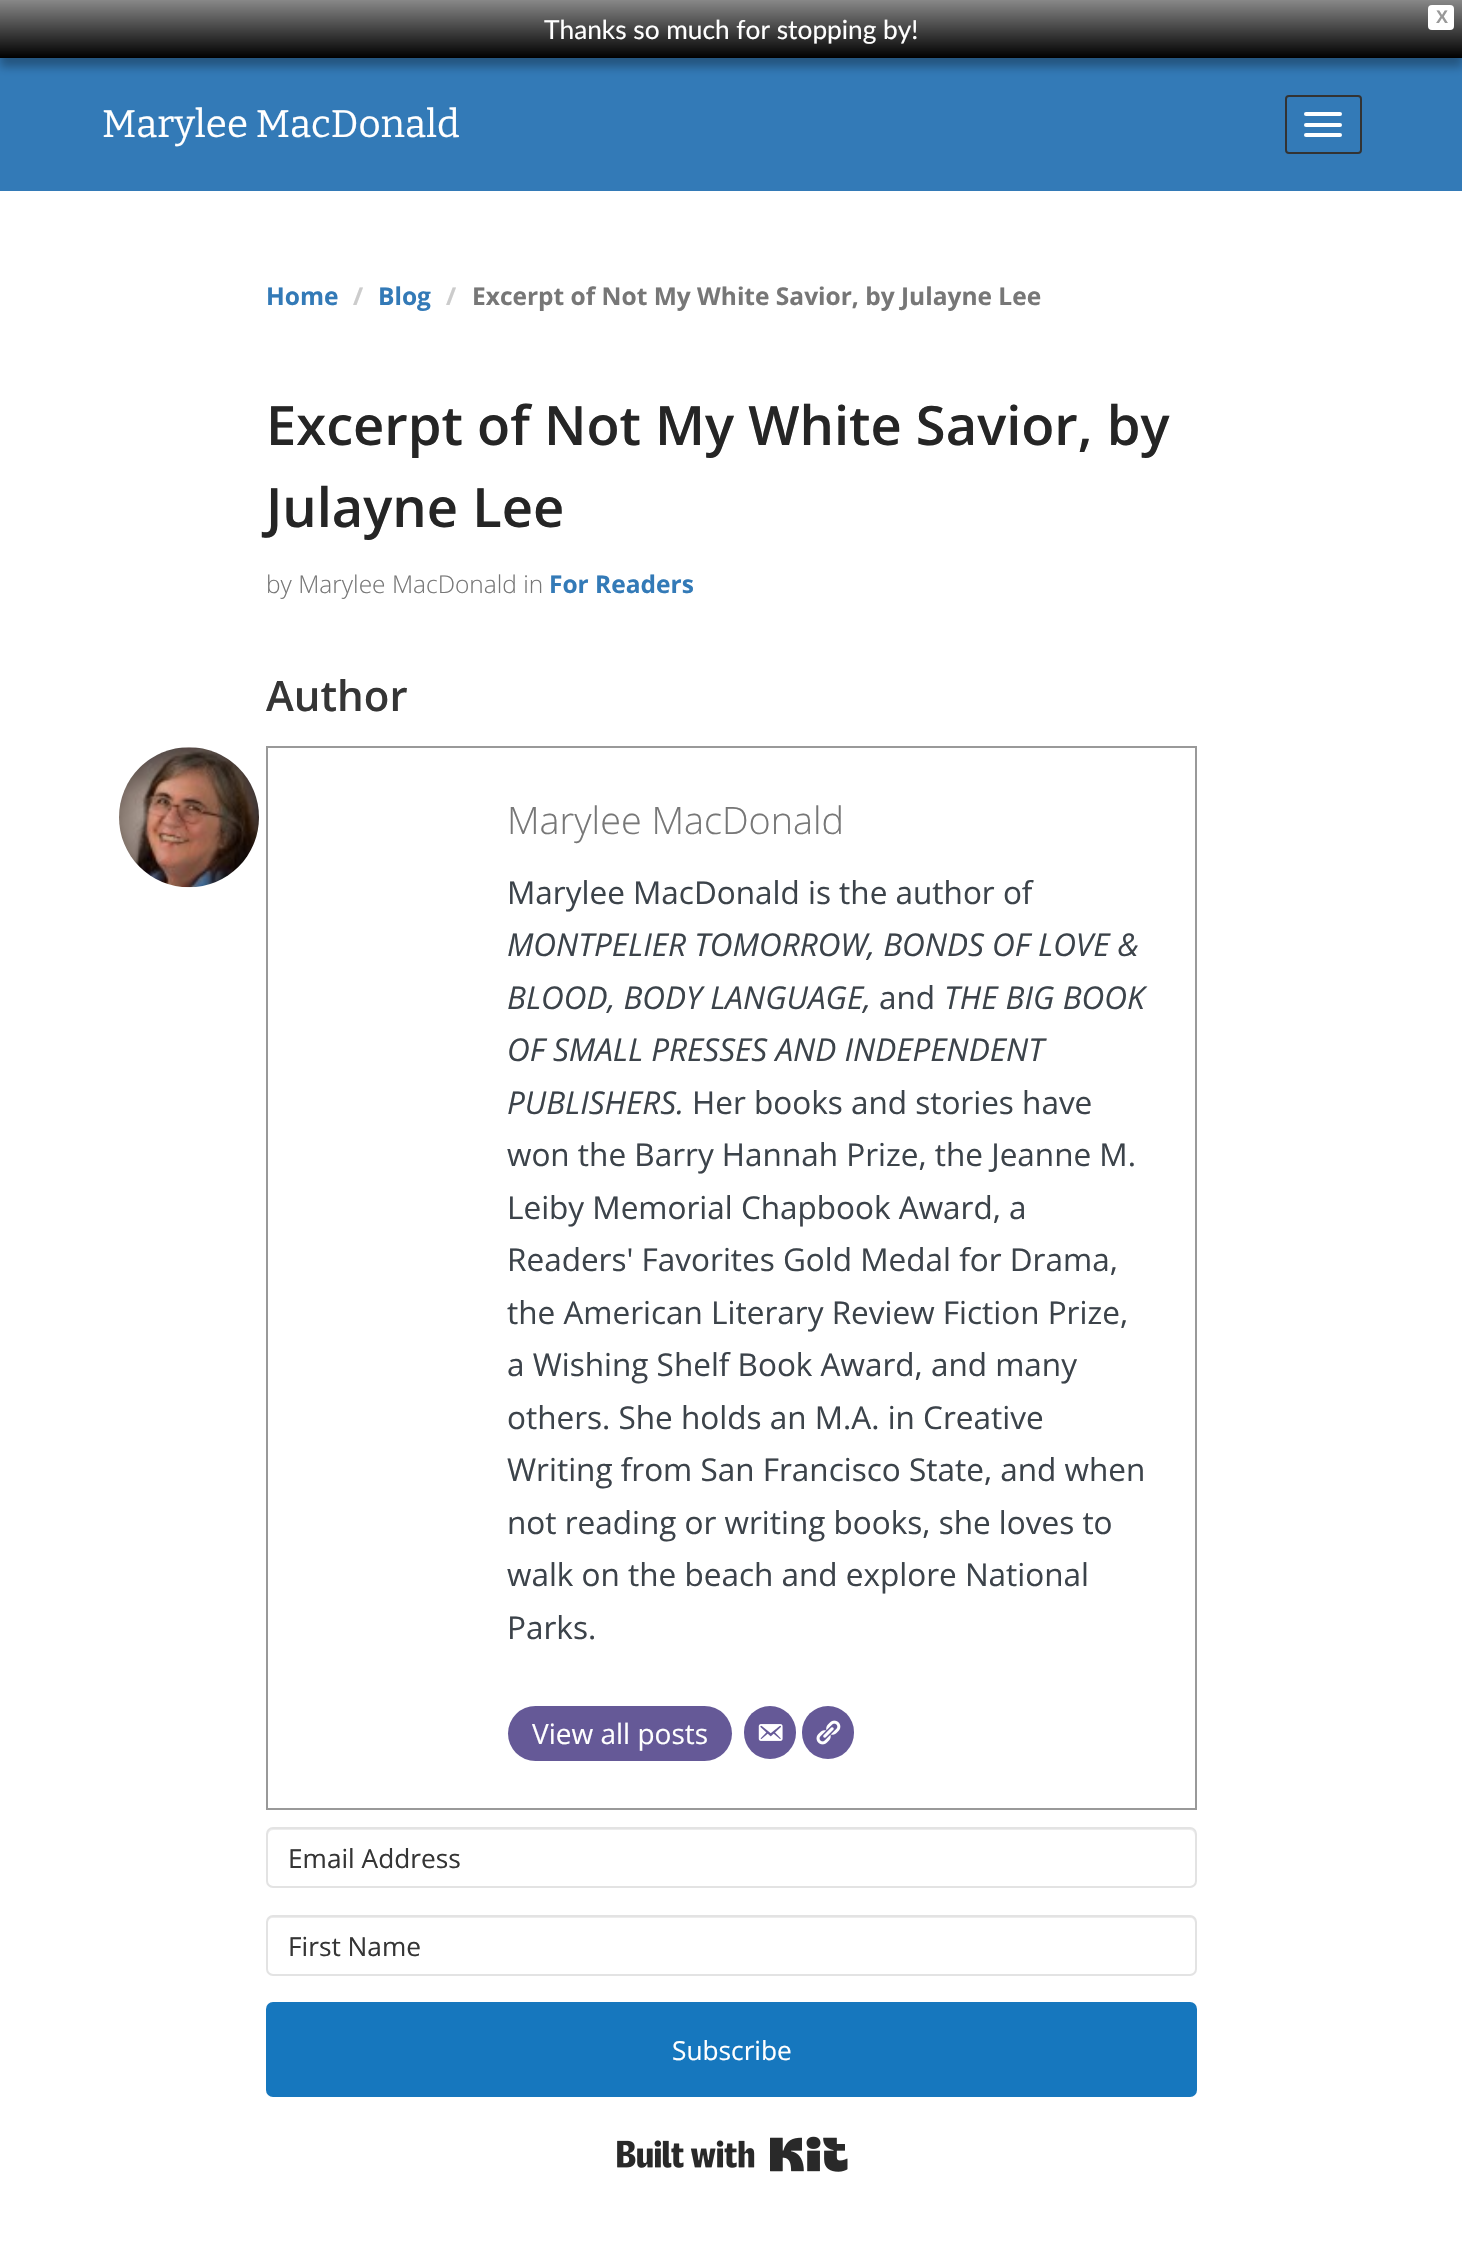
void draw(SkCanvas* c) {
SkPaint p;
p.setAntiAlias(true);
auto F=[&](const char* family, int weight, float size, bool italic = false){SkFontStyle style(weight, SkFontStyle::kNormal_Width,italic ? SkFontStyle::kItalic_Slant : SkFontStyle::kUpright_Slant);SkFont result(fontMgr->matchFamilyStyle(family, style), size);result.setSubpixel(true);return result;};
auto T=[&](const char* s, float x, float y, const SkFont& font){c->drawString(s, x, y, font, p);};
auto R=[&](float x, float y, float w, float h){c->drawRect(SkRect::MakeXYWH(x, y, w, h), p);};
auto Q=[&](float x, float y, float w, float h, float radius){c->drawRoundRect(SkRect::MakeXYWH(x, y, w, h), radius, radius, p);};
auto I=[&](const char* path, float x, float y, float w, float h){auto image = SkImages::DeferredFromEncodedData(SkData::MakeFromFileName(path));c->drawImageRect(image, SkRect::MakeXYWH(x, y, w, h), SkSamplingOptions());};
auto P=[&](const char* data, bool evenOdd = false){SkPath result = *SkParsePath::FromSVGString(data);if (evenOdd) result.setFillType(SkPathFillType::kEvenOdd);return result;};
c->clear(0xffffffff);
p.setColor(0xff337ab7);
R(0,58,1462,133);
p.setColor(0x4d000000);
p.setMaskFilter(SkMaskFilter::MakeBlur(kNormal_SkBlurStyle, 4.5));
c->drawRect(SkRect::MakeXYWH(0,9,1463,58),p);
p.setMaskFilter(nullptr);
{
const SkColor colors[] = {0xff888888,0xff000000};
const float stops[] = {0,1};
const SkPoint ends[] = {{732,0}, {732,58}};
p.setShader(SkGradientShader::MakeLinear(ends, colors, stops, 2, SkTileMode::kClamp));
p.setAlpha(255);
}
R(0,0,1462,58);
p.setShader(nullptr);
p.setColor(0xffffffff);
Q(1428,5,26,25,4);
auto f1 = F("Liberation Sans",700,18);
p.setColor(0xff999999);
T("X",1436,23,f1);
auto f2 = F("Lato",400,26.25);
p.setColor(0xffffffff);
T("Thanks so much for stopping by!",544,39,f2);
auto f3 = F("Bitter",400,38.5);
T("Marylee MacDonald",102,137,f3);
p.setStroke(true);
p.setStrokeWidth(2);
p.setColor(0xff333333);
c->drawRoundRect(SkRect::MakeXYWH(1286,96,75,57),3,3,p);
p.setStroke(false);
p.setColor(0xffffffff);
Q(1304,112,38,4,2);
Q(1304,123,38,4,2);
Q(1304,133,38,4,2);
auto f4 = F("Open Sans",700,24.5);
p.setColor(0xff337ab7);
T("Home",266,305,f4);
p.setColor(0xffcccccc);
T("/",353,305,f4);
p.setColor(0xff337ab7);
T("Blog",378,305,f4);
p.setColor(0xffcccccc);
T("/",446,305,f4);
p.setColor(0xff777777);
T("Excerpt of Not My White Savior, by Julayne Lee",472,305,f4);
auto f5 = F("Open Sans",600,54.25);
p.setColor(0xff252525);
T("Excerpt of Not My White Savior, by",266,445,f5);
T("Julayne Lee",266,527,f5);
auto f6 = F("Open Sans",300,24.5);
p.setColor(0xff777777);
T("by Marylee MacDonald in",266,593,f6);
p.setColor(0xff337ab7);
T("For Readers",549,593,f4);
auto f7 = F("Open Sans",600,42);
p.setColor(0xff353535);
T("Author",266,711,f7);
p.setStroke(true);
p.setColor(0xff999999);
c->drawRect(SkRect::MakeXYWH(267,747,929,1062),p);
I("1.png",119,747,140,141);
auto f8 = F("Open Sans",300,37.75);
p.setStroke(false);
p.setColor(0xff777777);
T("Marylee MacDonald",507,834,f8);
auto f9 = F("Open Sans",400,31.5);
p.setColor(0xff3c434a);
T("Marylee MacDonald is the author of",507,904,f9);
auto f10 = F("Open Sans",400,31.5,true);
T("MONTPELIER TOMORROW, BONDS OF LOVE &",507,956,f10);
T("BLOOD, BODY LANGUAGE,",507,1009,f10);
T("and",879,1009,f9);
T("THE BIG BOOK",944,1009,f10);
T("OF SMALL PRESSES AND INDEPENDENT",507,1061,f10);
T("PUBLISHERS.",507,1114,f10);
T("Her books and stories have",692,1114,f9);
T("won the Barry Hannah Prize, the Jeanne M.",507,1166,f9);
T("Leiby Memorial Chapbook Award, a",507,1219,f9);
T("Readers' Favorites Gold Medal for Drama,",507,1271,f9);
T("the American Literary Review Fiction Prize,",507,1324,f9);
T("a Wishing Shelf Book Award, and many",507,1376,f9);
T("others. She holds an M.A. in Creative",507,1429,f9);
T("Writing from San Francisco State, and when",507,1481,f9);
T("not reading or writing books, she loves to",507,1534,f9);
T("walk on the beach and explore National",507,1586,f9);
T("Parks.",507,1639,f9);
p.setColor(0xff655997);
Q(508,1706,224,55,27.5);
auto f11 = F("Open Sans",400,28);
p.setColor(0xffffffff);
T("View all posts",532,1744,f11);
p.setColor(0xff655997);
Q(744,1706,52,53,26);
I("2.png",758,1724,25,17);
Q(802,1706,52,53,26);
I("3.png",816,1720,25,25);
p.setColor(0xffececec);
c->drawPath(P("M273 1830h917c3 0 5 3 5 6v-2c0-3-2-5-5-5h-917c-3 0-5 2-5 5v2c0-3 2-6 5-6z"),p);
p.setStroke(true);
p.setColor(0xffe3e3e3);
c->drawRoundRect(SkRect::MakeXYWH(267,1828,929,59),6,6,p);
auto f12 = F("Open Sans",400,26.25);
p.setStroke(false);
p.setColor(0xff353535);
T("Email Address",288,1868,f12);
p.setColor(0xffececec);
c->drawPath(P("M273 1918h917c3 0 5 2 5 5v-2c0-3-2-5-5-5h-917c-3 0-5 2-5 5v2c0-3 2-5 5-5z"),p);
p.setStroke(true);
p.setColor(0xffe3e3e3);
c->drawRoundRect(SkRect::MakeXYWH(267,1916,929,59),6,6,p);
p.setStroke(false);
p.setColor(0xff353535);
T("First Name",288,1956,f12);
p.setColor(0xff1677be);
Q(266,2002,931,95,7);
p.setColor(0xffffffff);
T("Subscribe",672,2060,f12);
I("4.png",617,2136,231,36);
}
